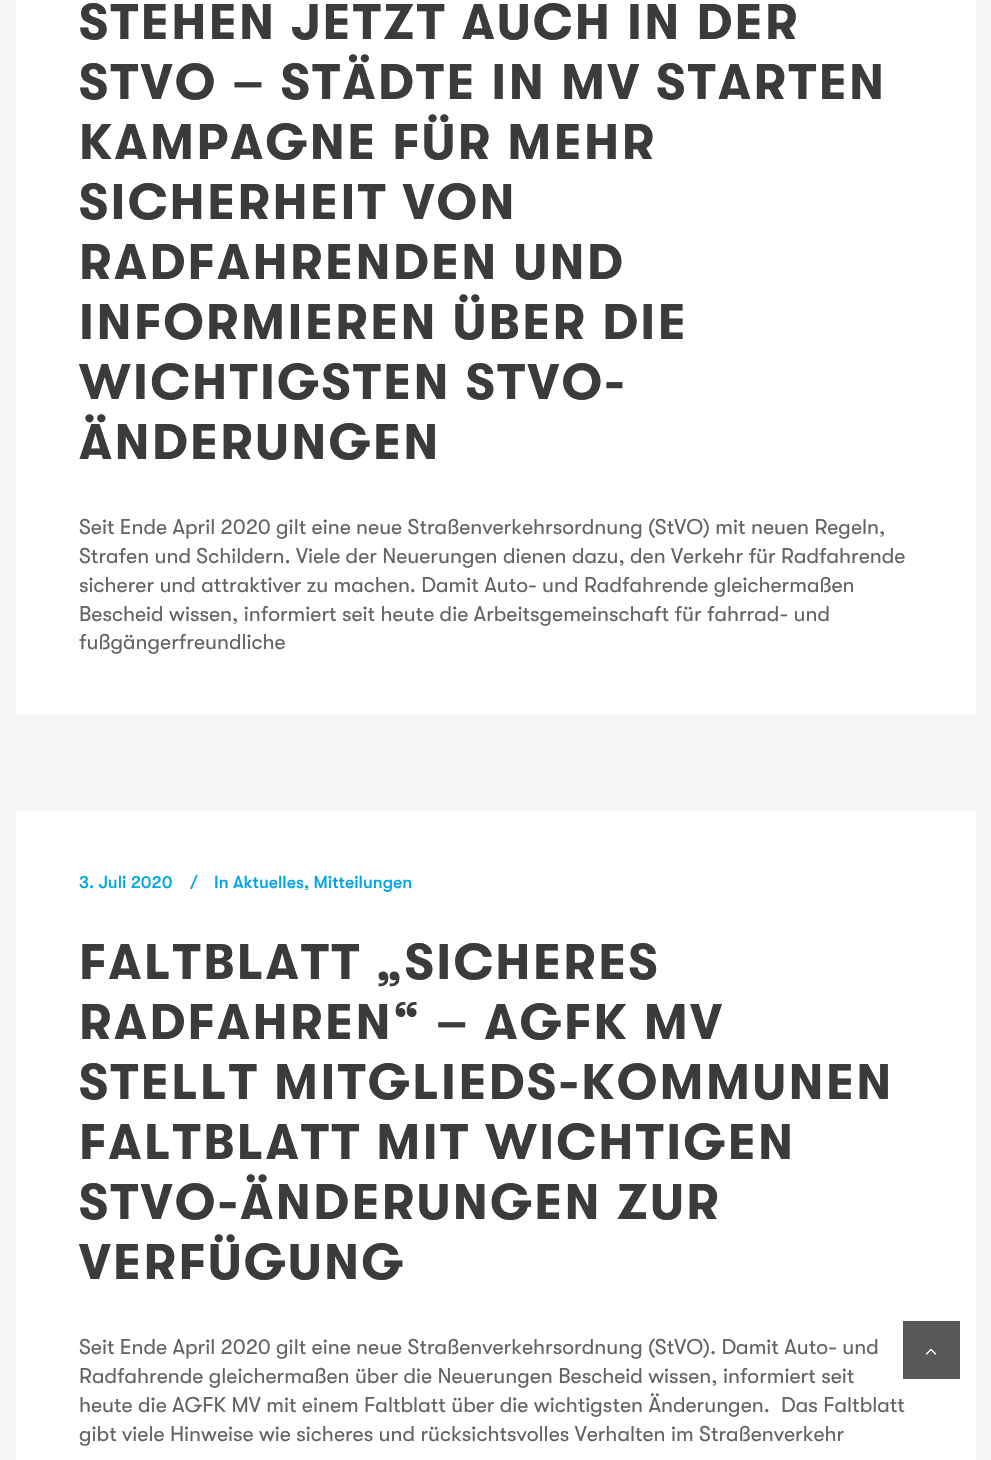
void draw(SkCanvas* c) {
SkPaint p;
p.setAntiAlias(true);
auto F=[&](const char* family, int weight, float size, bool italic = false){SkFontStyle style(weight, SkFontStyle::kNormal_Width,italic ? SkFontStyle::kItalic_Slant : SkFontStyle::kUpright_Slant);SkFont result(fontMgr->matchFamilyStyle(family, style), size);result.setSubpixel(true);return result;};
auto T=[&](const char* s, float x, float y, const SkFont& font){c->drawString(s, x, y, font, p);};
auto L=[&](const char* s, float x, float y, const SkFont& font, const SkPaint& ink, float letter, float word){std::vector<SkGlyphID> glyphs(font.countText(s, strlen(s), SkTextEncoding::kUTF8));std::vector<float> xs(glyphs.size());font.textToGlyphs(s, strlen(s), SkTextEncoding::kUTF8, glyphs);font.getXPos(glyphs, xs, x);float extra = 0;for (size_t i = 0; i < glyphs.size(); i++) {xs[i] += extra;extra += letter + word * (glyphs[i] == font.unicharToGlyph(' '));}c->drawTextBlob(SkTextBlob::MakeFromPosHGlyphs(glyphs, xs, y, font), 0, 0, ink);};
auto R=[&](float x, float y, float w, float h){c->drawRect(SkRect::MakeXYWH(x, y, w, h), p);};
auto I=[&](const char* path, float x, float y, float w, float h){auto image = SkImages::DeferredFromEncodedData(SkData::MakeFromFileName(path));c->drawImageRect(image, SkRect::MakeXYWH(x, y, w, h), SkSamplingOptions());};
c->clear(0xfff5f5f5);
p.setColor(0xffffffff);
R(16,0,960,715);
auto f1 = F("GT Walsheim",700,50);
p.setColor(0xff3b3b3a);
L("STEHEN JETZT AUCH IN DER",79,39,f1,p,2.5,0);
L("STVO – STÄDTE IN MV STARTEN",79,99,f1,p,2.5,0);
L("KAMPAGNE FÜR MEHR",79,159,f1,p,2.5,0);
L("SICHERHEIT VON",79,219,f1,p,2.5,0);
L("RADFAHRENDEN UND",79,279,f1,p,2.5,0);
L("INFORMIEREN ÜBER DIE",79,339,f1,p,2.5,0);
L("WICHTIGSTEN STVO-",79,399,f1,p,2.5,0);
L("ÄNDERUNGEN",79,459,f1,p,2.5,0);
auto f2 = F("GT Walsheim",400,21.25);
p.setColor(0xff636362);
T("Seit Ende April 2020 gilt eine neue Straßenverkehrsordnung (StVO) mit neuen Regeln,",79,534,f2);
T("Strafen und Schildern. Viele der Neuerungen dienen dazu, den Verkehr für Radfahrende",79,563,f2);
T("sicherer und attraktiver zu machen. Damit Auto- und Radfahrende gleichermaßen",79,592,f2);
T("Bescheid wissen, informiert seit heute die Arbeitsgemeinschaft für fahrrad- und",79,621,f2);
T("fußgängerfreundliche",79,649,f2);
p.setColor(0xffffffff);
R(16,811,960,649);
auto f3 = F("GT Walsheim",500,17.5);
p.setColor(0xff00a7e7);
T("3. Juli 2020",79,888,f3);
T("/",190,888,f3);
T("In Aktuelles, Mitteilungen",214,888,f3);
p.setColor(0xff3b3b3a);
L("FALTBLATT „SICHERES",79,979,f1,p,2.5,0);
L("RADFAHREN“ – AGFK MV",79,1039,f1,p,2.5,0);
L("STELLT MITGLIEDS-KOMMUNEN",79,1099,f1,p,2.5,0);
L("FALTBLATT MIT WICHTIGEN",79,1159,f1,p,2.5,0);
L("STVO-ÄNDERUNGEN ZUR",79,1219,f1,p,2.5,0);
L("VERFÜGUNG",79,1279,f1,p,2.5,0);
p.setColor(0xff636362);
T("Seit Ende April 2020 gilt eine neue Straßenverkehrsordnung (StVO). Damit Auto- und",79,1354,f2);
T("Radfahrende gleichermaßen über die Neuerungen Bescheid wissen, informiert seit",79,1383,f2);
T("heute die AGFK MV mit einem Faltblatt über die wichtigsten Änderungen.",79,1412,f2);
T("Das Faltblatt",781,1412,f2);
T("gibt viele Hinweise wie sicheres und rücksichtsvolles Verhalten im Straßenverkehr",79,1441,f2);
p.setColor(0xff585858);
R(903,1321,57,58);
I("1.png",925,1348,12,7);
}
